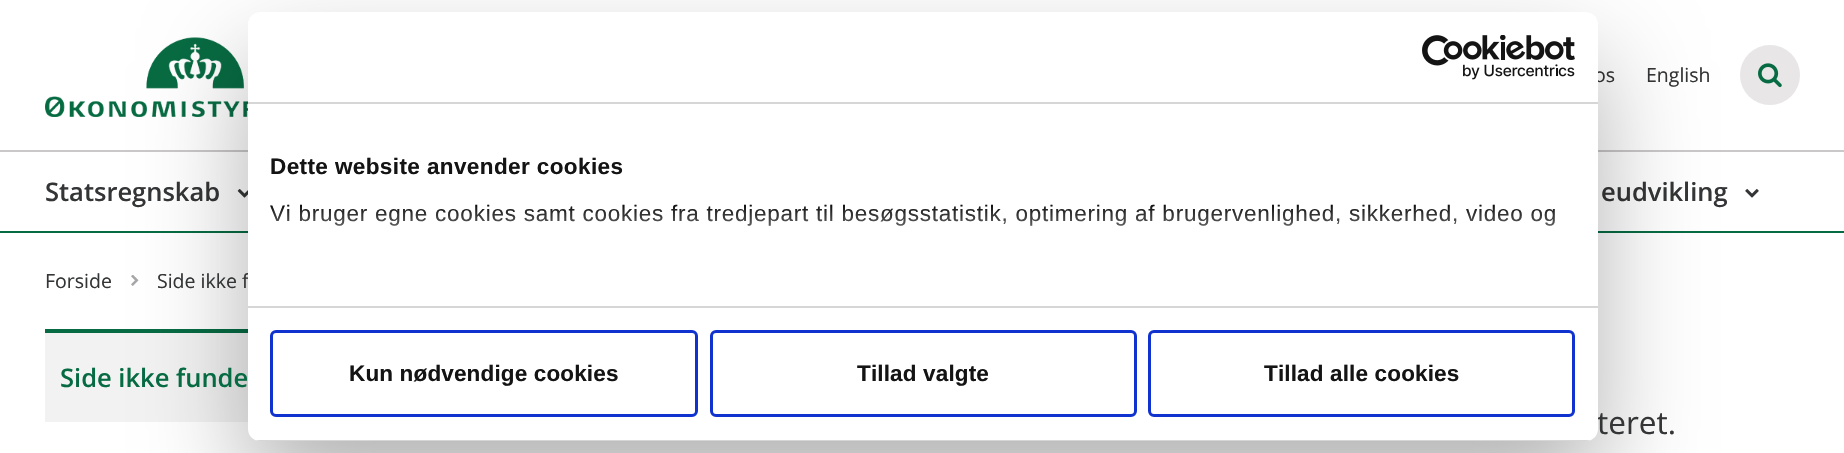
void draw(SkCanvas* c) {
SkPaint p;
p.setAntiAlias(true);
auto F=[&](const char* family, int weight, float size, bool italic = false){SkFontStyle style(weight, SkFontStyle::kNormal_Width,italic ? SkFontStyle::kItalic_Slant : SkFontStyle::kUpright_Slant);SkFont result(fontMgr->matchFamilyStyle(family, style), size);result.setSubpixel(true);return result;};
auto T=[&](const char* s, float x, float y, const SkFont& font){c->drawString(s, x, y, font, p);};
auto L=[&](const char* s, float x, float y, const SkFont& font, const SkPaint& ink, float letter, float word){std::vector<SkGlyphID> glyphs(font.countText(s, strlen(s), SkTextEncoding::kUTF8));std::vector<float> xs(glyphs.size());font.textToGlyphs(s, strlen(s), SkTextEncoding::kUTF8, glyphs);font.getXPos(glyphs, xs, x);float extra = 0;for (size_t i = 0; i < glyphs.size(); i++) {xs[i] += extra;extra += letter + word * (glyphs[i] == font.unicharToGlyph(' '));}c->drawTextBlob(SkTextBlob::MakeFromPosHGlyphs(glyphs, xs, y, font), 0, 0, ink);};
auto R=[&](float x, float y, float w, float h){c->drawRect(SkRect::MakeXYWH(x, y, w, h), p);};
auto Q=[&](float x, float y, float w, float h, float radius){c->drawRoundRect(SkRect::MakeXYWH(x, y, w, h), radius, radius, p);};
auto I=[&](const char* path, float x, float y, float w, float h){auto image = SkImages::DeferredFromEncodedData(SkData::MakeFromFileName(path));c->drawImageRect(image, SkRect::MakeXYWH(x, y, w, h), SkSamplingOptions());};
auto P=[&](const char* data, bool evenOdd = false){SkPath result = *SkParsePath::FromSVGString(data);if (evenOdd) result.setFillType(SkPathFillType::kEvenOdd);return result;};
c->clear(0xffffffff);
I("1.png",45,37,203,80);
auto f1 = F("Open Sans",400,19.5);
p.setColor(0xff343536);
T("os",1594,82,f1);
T("English",1646,82,f1);
p.setColor(0xffe8e6e6);
c->drawCircle(1770,75,30,p);
I("2.png",1758,63,24,25);
p.setColor(0xffcac8c8);
R(0,150,1844,2);
p.setColor(0xff066b43);
R(0,231,1844,2);
auto f2 = F("Open Sans",600,25.5);
p.setColor(0xff343536);
T("Statsregnskab",45,201,f2);
I("3.png",237,189,11,9);
T("eudvikling",1601,201,f2);
I("4.png",1745,189,14,9);
I("6.png",131,275,8,11);
p.setColor(0xff066b43);
R(45,329,203,4);
p.setColor(0xfff3f2f2);
R(45,333,203,89);
p.setColor(0x4d000000);
p.setMaskFilter(SkMaskFilter::MakeBlur(kNormal_SkBlurStyle, 51));
c->drawRoundRect(SkRect::MakeXYWH(248,60,1350,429),12,12,p);
p.setMaskFilter(nullptr);
p.setColor(0xff343536);
T("Side ikke f",157,288,f1);
auto f3 = F("Open Sans",400,31.5);
T("teret.",1597,434,f3);
p.setColor(0xffffffff);
Q(248,12,1350,429,12);
p.setColor(0xffd6d6d6);
R(248,102,1350,2);
I("5.png",1422,35,153,45);
R(248,306,1350,2);
auto f4 = F("Liberation Sans",700,22.5);
p.setColor(0xff141414);
L("Dette website anvender cookies",270,174,f4,p,.4,0);
auto f5 = F("Liberation Sans",400,22.5);
L("Vi bruger egne cookies samt cookies fra tredjepart til besøgsstatistik, optimering af brugervenlighed, sikkerhed, video og",270,221,f5,p,.75,0);
{
const SkColor colors[] = {0xffffffff,0xccffffff,0x00ffffff};
const float stops[] = {0,.5,1};
const SkPoint ends[] = {{913,306}, {913,206}};
p.setShader(SkGradientShader::MakeLinear(ends, colors, stops, 3, SkTileMode::kClamp));
p.setAlpha(255);
}
R(271,207,1284,19);
c->save();
c->clipPath(P("M260 12h1326c6.5 0 12 5.5 12 12v405c0 6.5-5.5 12-12 12h-1326c-6.5 0-12-5.5-12-12v-405c0-6.5 5.5-12 12-12z"),true);
p.setShader(nullptr);
p.setColor(0xffd6d6d6);
R(248,440,1350,1);
c->restore();
p.setStroke(true);
p.setStrokeWidth(3);
p.setColor(0xff1032cf);
c->drawRoundRect(SkRect::MakeXYWH(271.5,331.5,425,84),4.5,4.5,p);
p.setStroke(false);
p.setColor(0xff141414);
L("Kun nødvendige cookies",349,381,f4,p,.15,0);
p.setStroke(true);
p.setColor(0xff1032cf);
c->drawRoundRect(SkRect::MakeXYWH(711.5,331.5,424,84),4.5,4.5,p);
p.setStroke(false);
p.setColor(0xff141414);
L("Tillad valgte",857,381,f4,p,.15,0);
p.setStroke(true);
p.setColor(0xff1032cf);
c->drawRoundRect(SkRect::MakeXYWH(1149.5,331.5,424,84),4.5,4.5,p);
p.setStroke(false);
p.setColor(0xff141414);
L("Tillad alle cookies",1264,381,f4,p,.15,0);
p.setColor(0xff343536);
T("Forside",45,288,f1);
p.setColor(0xff066b43);
T("Side ikke funde",60,387,f2);
}
